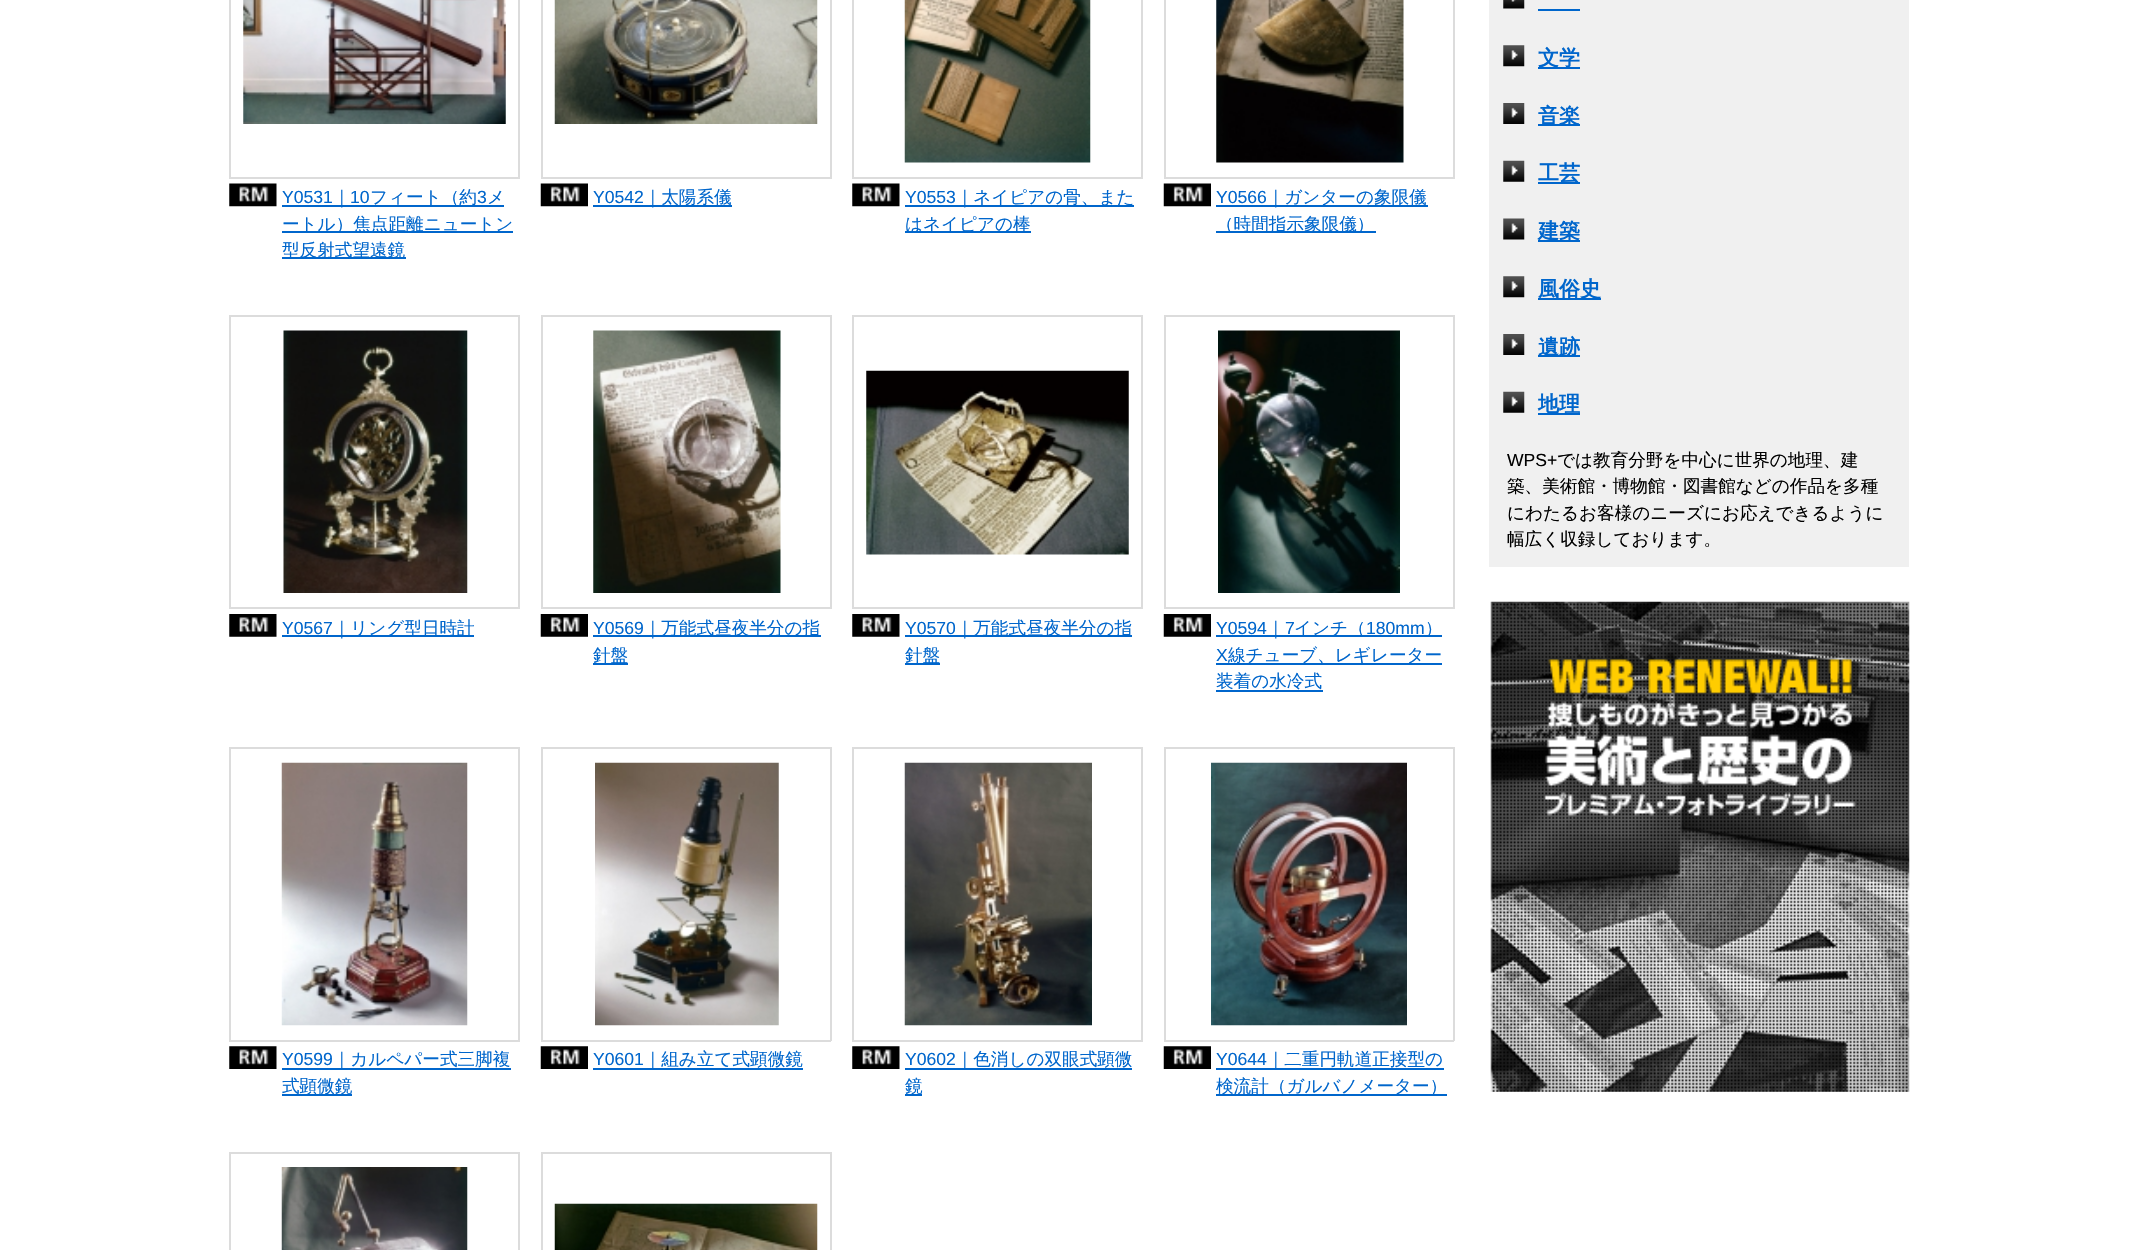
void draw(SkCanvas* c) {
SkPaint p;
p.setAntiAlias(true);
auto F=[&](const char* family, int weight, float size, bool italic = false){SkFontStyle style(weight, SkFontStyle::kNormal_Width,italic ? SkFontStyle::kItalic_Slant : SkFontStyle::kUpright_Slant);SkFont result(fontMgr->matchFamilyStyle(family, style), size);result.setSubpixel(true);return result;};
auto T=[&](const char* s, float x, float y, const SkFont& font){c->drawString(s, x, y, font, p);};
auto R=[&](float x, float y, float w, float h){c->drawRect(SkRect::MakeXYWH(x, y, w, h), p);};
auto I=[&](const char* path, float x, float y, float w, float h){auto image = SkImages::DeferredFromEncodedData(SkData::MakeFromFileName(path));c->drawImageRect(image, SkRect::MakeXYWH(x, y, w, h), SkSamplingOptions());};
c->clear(0xffffffff);
p.setColor(0xffdcdcdc);
R(518,0,2,179);
R(229,177,291,2);
R(229,0,2,179);
I("1.png",243,0,263,124);
I("2.png",229,183,48,24);
auto f1 = F("Liberation Sans",400,17.6);
p.setColor(0xff0066cc);
T("Y0531",282,203,f1);
R(282,205,222,2);
auto f2 = F("WenQuanYi Zen Hei",500,17.6);
T("｜",333,203,f2);
T("10",350,203,f1);
T("フィート（約",370,203,f2);
T("3",477,203,f1);
T("メ",487,203,f2);
R(282,231,231,2);
T("ートル）焦点距離ニュートン",282,230,f2);
R(282,257,124,2);
T("型反射式望遠鏡",282,256,f2);
p.setColor(0xffdcdcdc);
R(830,0,2,179);
R(541,177,290,2);
R(541,0,2,179);
I("3.png",554,0,264,124);
I("4.png",540,183,48,24);
p.setColor(0xff0066cc);
T("Y0542",593,203,f1);
R(593,205,139,2);
T("｜太陽系儀",644,203,f2);
p.setColor(0xffdcdcdc);
R(1141,0,2,179);
R(852,177,291,2);
R(852,0,2,179);
I("5.png",904,0,187,163);
I("2.png",852,183,48,24);
p.setColor(0xff0066cc);
T("Y0553",905,203,f1);
R(905,205,229,2);
T("｜ネイピアの骨、また",956,203,f2);
R(905,231,126,2);
T("はネイピアの棒",905,230,f2);
p.setColor(0xffdcdcdc);
R(1453,0,2,179);
R(1164,177,290,2);
R(1164,0,2,179);
I("6.png",1216,0,188,163);
I("4.png",1163,183,48,24);
p.setColor(0xff0066cc);
T("Y0566",1216,203,f1);
R(1216,205,212,2);
T("｜ガンターの象限儀",1267,203,f2);
R(1216,231,160,2);
T("（時間指示象限儀）",1216,230,f2);
p.setColor(0xffdcdcdc);
R(229,315,291,2);
R(518,315,2,294);
R(229,607,291,2);
R(229,315,2,294);
I("7.png",283,330,185,263);
I("8.png",229,614,48,23);
p.setColor(0xff0066cc);
T("Y0567",282,634,f1);
R(282,635,192,2);
T("｜リング型日時計",333,634,f2);
p.setColor(0xffdcdcdc);
R(541,315,290,2);
R(830,315,2,294);
R(541,607,290,2);
R(541,315,2,294);
I("9.png",593,330,188,263);
I("10.png",540,614,48,23);
p.setColor(0xff0066cc);
T("Y0569",593,634,f1);
R(593,635,228,2);
T("｜万能式昼夜半分の指",644,634,f2);
R(593,663,35,2);
T("針盤",593,661,f2);
p.setColor(0xffdcdcdc);
R(852,315,291,2);
R(1141,315,2,294);
R(852,607,291,2);
R(852,315,2,294);
I("11.png",866,370,263,185);
I("8.png",852,614,48,23);
p.setColor(0xff0066cc);
T("Y0570",905,634,f1);
R(905,635,227,2);
T("｜万能式昼夜半分の指",956,634,f2);
R(905,663,35,2);
T("針盤",905,661,f2);
p.setColor(0xffdcdcdc);
R(1164,315,290,2);
R(1453,315,2,294);
R(1164,607,290,2);
R(1164,315,2,294);
I("12.png",1218,330,182,263);
I("10.png",1163,614,48,23);
p.setColor(0xff0066cc);
T("Y0594",1216,634,f1);
R(1216,635,226,2);
T("｜",1267,634,f2);
T("7",1285,634,f1);
T("インチ（",1294,634,f2);
T("180mm",1366,634,f1);
T("）",1425,634,f2);
T("X",1216,661,f1);
R(1216,663,226,2);
T("線チューブ、レギレーター",1228,661,f2);
T("装着の水冷式",1216,687,f2);
R(1216,690,107,2);
p.setColor(0xffdcdcdc);
R(229,747,291,2);
R(518,747,2,294);
R(229,1040,291,2);
R(229,747,2,294);
I("13.png",281,762,187,264);
I("14.png",229,1046,48,23);
p.setColor(0xff0066cc);
T("Y0599",282,1065,f1);
R(282,1068,229,2);
T("｜カルペパー式三脚複",333,1065,f2);
R(282,1094,70,2);
T("式顕微鏡",282,1092,f2);
p.setColor(0xffdcdcdc);
R(541,747,290,2);
R(830,747,2,294);
R(541,1040,290,2);
R(541,747,2,294);
I("15.png",595,762,184,264);
I("16.png",540,1046,48,23);
p.setColor(0xff0066cc);
T("Y0601",593,1065,f1);
R(593,1068,210,2);
T("｜組み立て式顕微鏡",644,1065,f2);
p.setColor(0xffdcdcdc);
R(852,747,291,2);
R(1141,747,2,294);
R(852,1040,291,2);
R(852,747,2,294);
I("17.png",904,762,188,264);
I("14.png",852,1046,48,23);
p.setColor(0xff0066cc);
T("Y0602",905,1065,f1);
R(905,1068,227,2);
T("｜色消しの双眼式顕微",956,1065,f2);
R(905,1094,17,2);
T("鏡",905,1092,f2);
p.setColor(0xffdcdcdc);
R(1164,747,290,2);
R(1453,747,2,294);
R(1164,1040,290,2);
R(1164,747,2,294);
I("18.png",1211,762,196,264);
I("16.png",1163,1046,48,23);
p.setColor(0xff0066cc);
T("Y0644",1216,1065,f1);
R(1216,1068,228,2);
T("｜二重円軌道正接型の",1267,1065,f2);
R(1216,1094,231,2);
T("検流計（ガルバノメーター）",1216,1092,f2);
p.setColor(0xffdcdcdc);
R(229,1152,291,2);
R(518,1152,2,98);
R(229,1152,2,98);
I("19.png",281,1167,187,83);
R(541,1152,290,2);
R(830,1152,2,98);
R(541,1152,2,98);
I("20.png",554,1203,264,47);
p.setColor(0xfff0f0f0);
R(1489,0,420,567);
I("21.png",1503,0,22,9);
p.setColor(0xff0066cc);
R(1538,9,42,2);
I("22.png",1503,45,22,22);
R(1538,67,42,2);
auto f3 = F("WenQuanYi Zen Hei",700,21);
T("文学",1538,65,f3);
I("23.png",1503,103,22,21);
R(1538,124,42,2);
T("音楽",1538,123,f3);
I("24.png",1503,160,22,22);
R(1538,182,42,2);
T("工芸",1538,180,f3);
I("25.png",1503,218,22,22);
R(1538,240,42,2);
T("建築",1538,238,f3);
I("22.png",1503,276,22,22);
R(1538,298,63,2);
T("風俗史",1538,296,f3);
I("23.png",1503,334,22,21);
R(1538,355,42,2);
T("遺跡",1538,354,f3);
I("24.png",1503,391,22,22);
R(1538,413,42,2);
T("地理",1538,411,f3);
p.setColor(0xff000000);
T("WPS+",1507,466,f1);
T("では教育分野を中心に世界の地理、建",1557,466,f2);
T("築、美術館・博物館・図書館などの作品を多種",1507,492,f2);
T("にわたるお客様のニーズにお応えできるように",1507,519,f2);
T("幅広く収録しております。",1507,545,f2);
I("26.png",1490,601,420,491);
}
